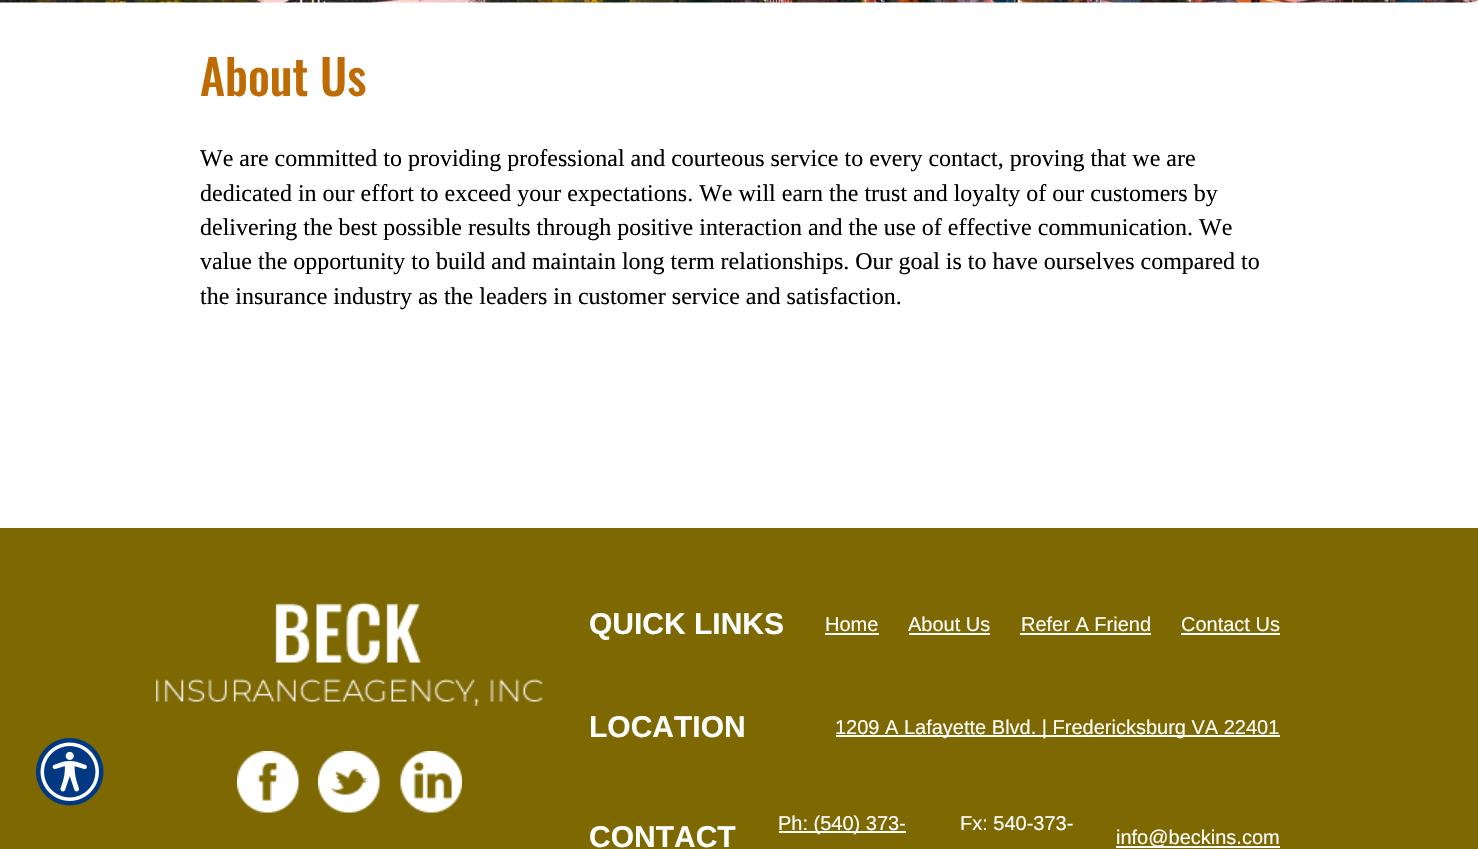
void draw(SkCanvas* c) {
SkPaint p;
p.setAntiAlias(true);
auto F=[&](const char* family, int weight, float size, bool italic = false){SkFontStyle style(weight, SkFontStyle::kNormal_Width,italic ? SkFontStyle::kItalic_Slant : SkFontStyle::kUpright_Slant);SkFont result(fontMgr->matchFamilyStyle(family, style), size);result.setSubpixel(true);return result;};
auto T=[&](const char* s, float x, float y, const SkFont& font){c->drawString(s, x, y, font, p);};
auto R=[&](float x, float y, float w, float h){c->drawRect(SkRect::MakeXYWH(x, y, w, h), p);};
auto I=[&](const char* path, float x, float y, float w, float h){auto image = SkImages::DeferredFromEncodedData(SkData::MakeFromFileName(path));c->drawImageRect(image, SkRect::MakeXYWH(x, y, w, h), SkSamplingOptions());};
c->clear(0xffffffff);
p.setColor(0xff7d6802);
R(0,528,1478,321);
I("1.png",36,738,68,68);
I("2.png",0,0,1478,3);
auto f1 = F("Oswald",500,48);
p.setColor(0xffbf6b04);
T("About Us",200,96,f1);
auto f2 = F("Liberation Serif",400,24);
p.setColor(0xff000000);
T("We are committed to providing professional and courteous service to every contact, proving that we are",200,166,f2);
T("dedicated in our effort to exceed your expectations. We will earn the trust and loyalty of our customers by",200,201,f2);
T("delivering the best possible results through positive interaction and the use of effective communication. We",200,235,f2);
T("value the opportunity to build and maintain long term relationships. Our goal is to have ourselves compared to",200,269,f2);
T("the insurance industry as the leaders in customer service and satisfaction.",200,304,f2);
I("3.png",156,602,387,104);
I("4.png",237,751,62,62);
I("5.png",318,751,62,62);
I("6.png",400,751,62,62);
auto f3 = F("Liberation Sans",700,30);
p.setColor(0xffffffff);
T("QUICK LINKS",589,634,f3);
auto f4 = F("Liberation Sans",400,20);
T("Home",825,631,f4);
R(825,633,54,2);
T("About Us",908,631,f4);
R(909,633,81,2);
T("Refer A Friend",1021,631,f4);
R(1020,633,131,2);
T("Contact Us",1181,631,f4);
R(1181,633,99,2);
T("LOCATION",589,737,f3);
R(836,735,444,2);
T("1209 A Lafayette Blvd. | Fredericksburg VA 22401",835,734,f4);
R(779,831,127,2);
T("Ph: (540) 373-",778,830,f4);
T("Fx: 540-373-",960,830,f4);
T("CONTACT",589,847,f3);
R(1116,846,164,2);
T("info@beckins.com",1116,844,f4);
}
